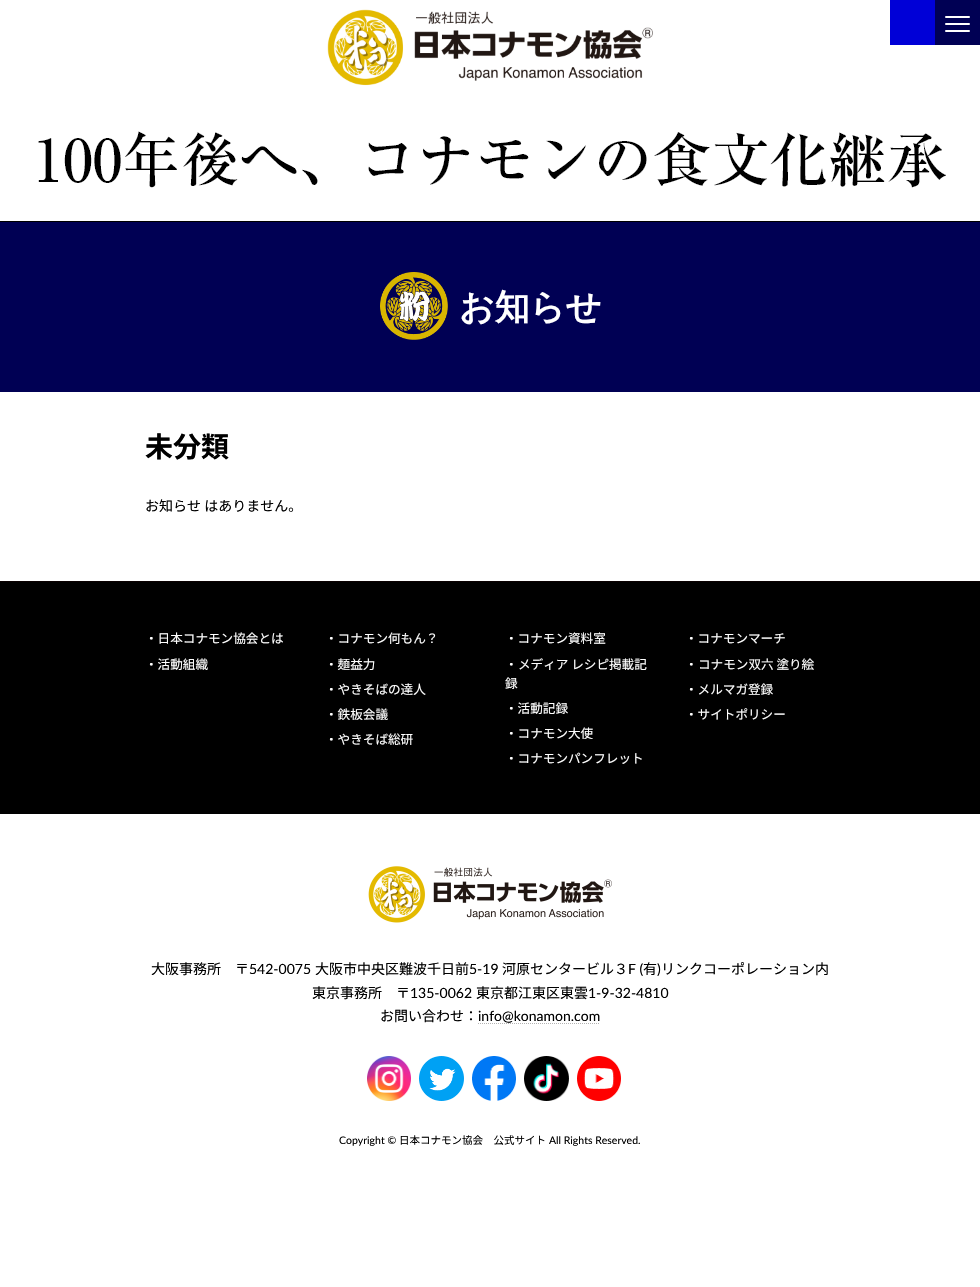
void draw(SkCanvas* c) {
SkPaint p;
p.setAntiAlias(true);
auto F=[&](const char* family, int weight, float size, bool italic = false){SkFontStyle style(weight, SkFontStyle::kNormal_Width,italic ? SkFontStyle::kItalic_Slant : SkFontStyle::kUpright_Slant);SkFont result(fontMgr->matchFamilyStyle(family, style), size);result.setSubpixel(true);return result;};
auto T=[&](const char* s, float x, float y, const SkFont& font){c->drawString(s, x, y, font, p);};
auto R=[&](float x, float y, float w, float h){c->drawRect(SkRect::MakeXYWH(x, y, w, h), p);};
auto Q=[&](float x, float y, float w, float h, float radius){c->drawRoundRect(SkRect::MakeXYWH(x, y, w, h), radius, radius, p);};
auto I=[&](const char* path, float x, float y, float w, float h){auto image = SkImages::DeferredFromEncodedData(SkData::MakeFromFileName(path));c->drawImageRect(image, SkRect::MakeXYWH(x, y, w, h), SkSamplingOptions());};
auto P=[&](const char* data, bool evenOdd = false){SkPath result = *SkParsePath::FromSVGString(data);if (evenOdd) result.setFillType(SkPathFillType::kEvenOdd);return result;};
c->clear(0xffffffff);
I("1.png",327,9,326,77);
p.setColor(0xff0000d7);
R(890,0,45,45);
p.setColor(0xff000000);
R(0,221,980,1);
I("2.png",38,131,908,57);
p.setColor(0xff000054);
R(935,0,45,45);
p.setColor(0xffffffff);
Q(945,23,25,2,1);
Q(945,16,25,2,1);
Q(945,30,25,2,1);
p.setColor(0xff000054);
R(0,222,980,170);
I("3.png",380,272,68,68);
auto f1 = F("WenQuanYi Zen Hei",700,35);
p.setColor(0xffffffff);
T("お知らせ",459,319,f1);
auto f2 = F("Noto Sans JP",700,28);
p.setColor(0xff000000);
T("未分類",145,457,f2);
auto f3 = F("Noto Sans JP",400,14);
T("お知らせ はありません。",145,511,f3);
p.setColor(0xff0a0101);
R(0,581,980,1);
p.setColor(0xff000000);
R(0,582,980,232);
auto f4 = F("Noto Sans JP",400,12.6);
p.setColor(0xffffffff);
T("・日本コナモン協会とは",145,643,f4);
T("・活動組織",145,669,f4);
T("・コナモン何もん？",325,643,f4);
T("・麺益力",325,669,f4);
T("・やきそばの達人",325,694,f4);
T("・鉄板会議",325,719,f4);
T("・やきそば総研",325,744,f4);
T("・コナモン資料室",505,643,f4);
T("・",505,669,f4);
T("メディア レシピ掲載記",518,669,f4);
T("録",505,688,f4);
T("・活動記録",505,713,f4);
T("・コナモン大使",505,738,f4);
T("・コナモンパンフレット",505,763,f4);
T("・コナモンマーチ",685,643,f4);
T("・",685,669,f4);
T("コナモン双六 塗り絵",698,669,f4);
T("・メルマガ登録",685,694,f4);
T("・サイトポリシー",685,719,f4);
I("4.png",368,866,244,57);
p.setColor(0xff000000);
T("大阪事務所　〒",151,974,f3);
auto f5 = F("Lato",400,14);
T("542-0075",249,974,f5);
T("大阪市中央区難波千日前",315,974,f3);
T("5-19",469,974,f5);
T("河原センタービル３",502,974,f3);
T("F (",628,974,f5);
T("有",643,974,f3);
T(")",657,974,f5);
T("リンクコーポレーション内",661,974,f3);
T("東京事務所　〒",312,998,f3);
T("135-0062",410,998,f5);
T("東京都江東区東雲",476,998,f3);
T("1-9-32-4810",588,998,f5);
T("お問い合わせ：",380,1021,f3);
T("info@konamon.com",478,1021,f5);
p.setStroke(true);
p.setStrokeWidth(1);
p.setColor(0xffb3b3b3);
p.setPathEffect(SkDashPathEffect::Make({{1,1}}, 0));
c->drawPath(P("M478 1023.5h122"),p);
p.setPathEffect(nullptr);
I("5.png",367,1056,44,45);
I("6.png",419,1056,45,45);
I("7.png",472,1056,44,45);
I("8.png",524,1056,45,45);
I("9.png",577,1056,44,45);
auto f6 = F("Lato",400,10.5);
p.setStroke(false);
p.setColor(0xff000000);
T("Copyright ©",339,1144,f6);
auto f7 = F("Noto Sans JP",400,10.5);
T("日本コナモン協会　公式サイト",399,1144,f7);
T("All Rights Reserved.",549,1144,f6);
}
